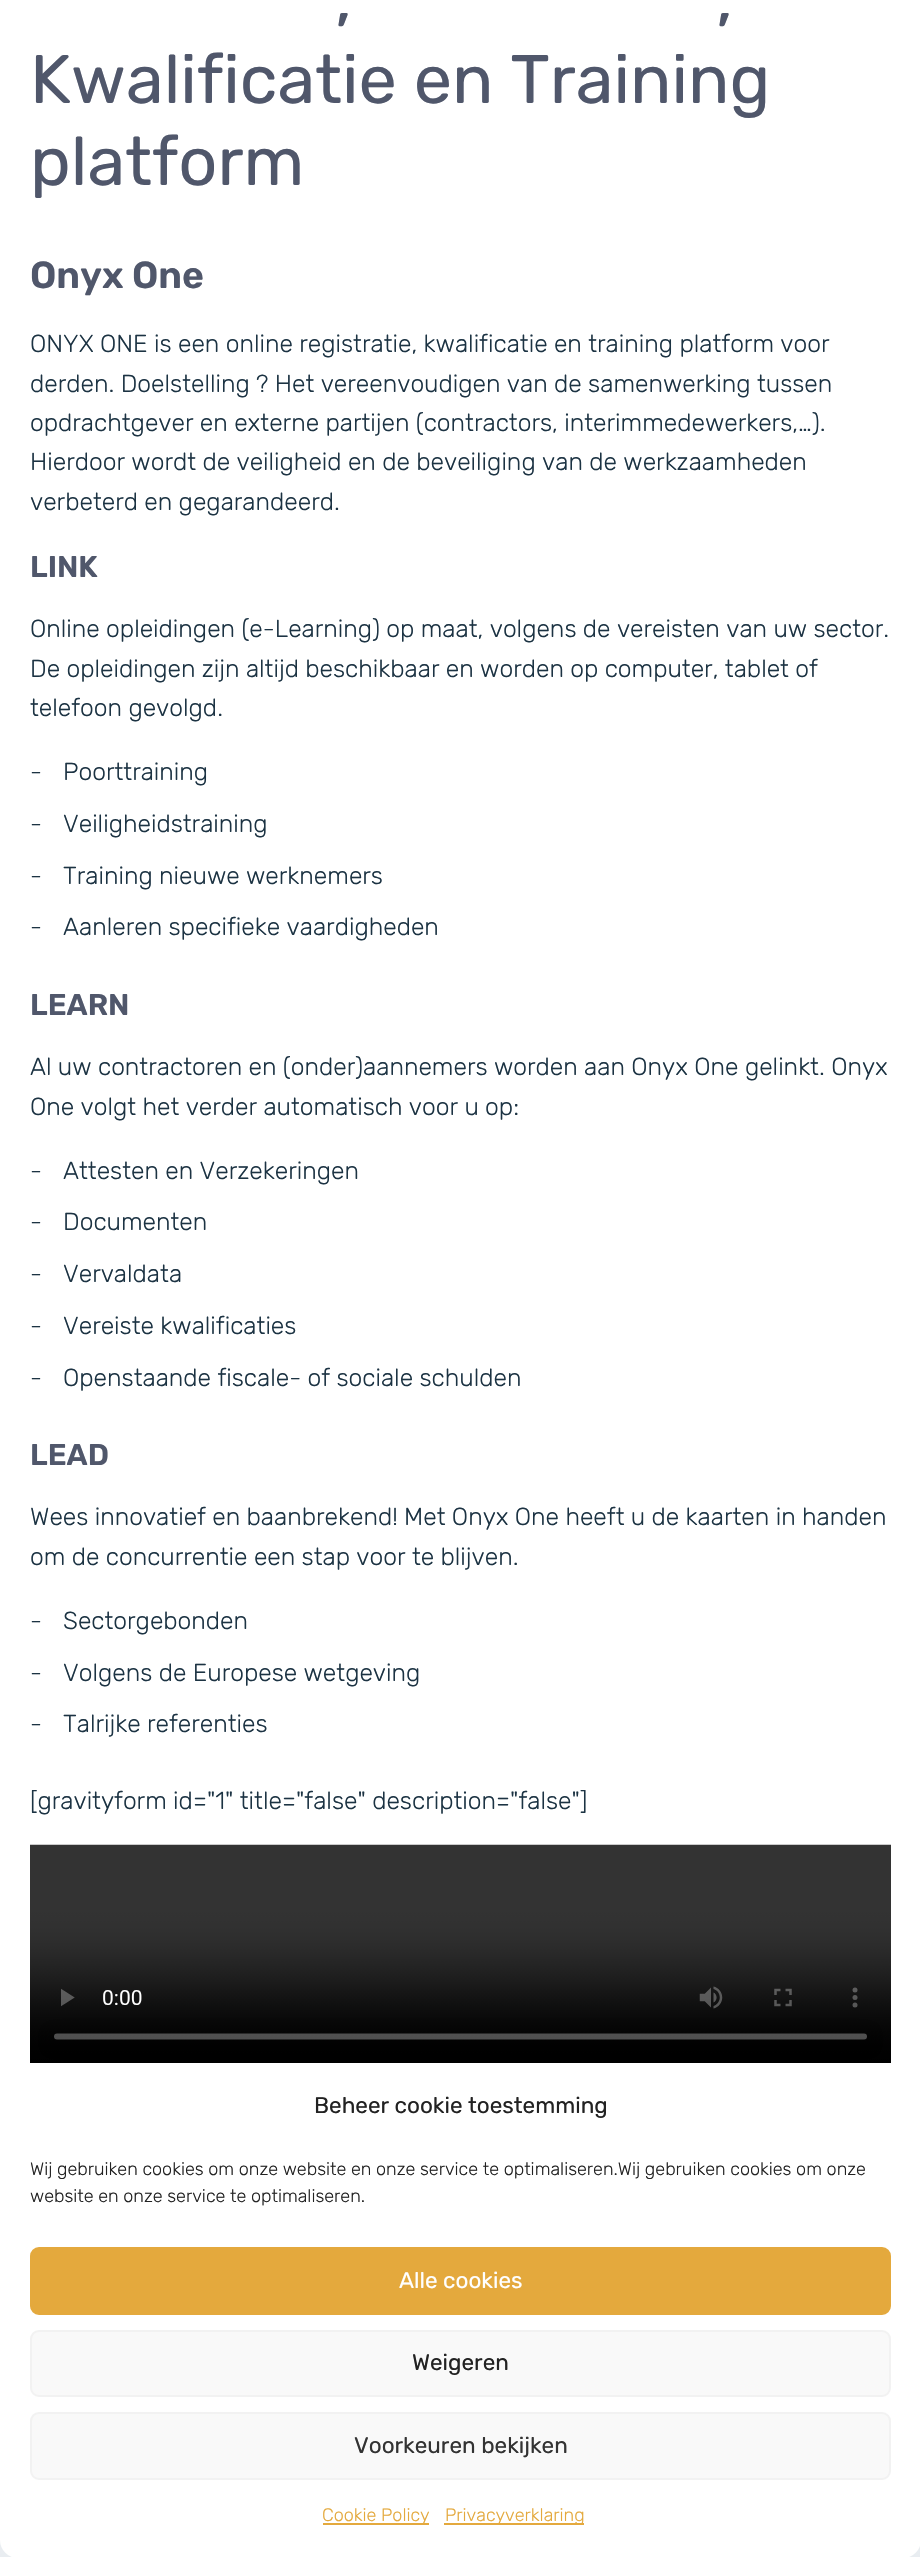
void draw(SkCanvas* c) {
SkPaint p;
p.setAntiAlias(true);
auto F=[&](const char* family, int weight, float size, bool italic = false){SkFontStyle style(weight, SkFontStyle::kNormal_Width,italic ? SkFontStyle::kItalic_Slant : SkFontStyle::kUpright_Slant);SkFont result(fontMgr->matchFamilyStyle(family, style), size);result.setSubpixel(true);return result;};
auto T=[&](const char* s, float x, float y, const SkFont& font){c->drawString(s, x, y, font, p);};
auto R=[&](float x, float y, float w, float h){c->drawRect(SkRect::MakeXYWH(x, y, w, h), p);};
auto Q=[&](float x, float y, float w, float h, float radius){c->drawRoundRect(SkRect::MakeXYWH(x, y, w, h), radius, radius, p);};
auto I=[&](const char* path, float x, float y, float w, float h){auto image = SkImages::DeferredFromEncodedData(SkData::MakeFromFileName(path));c->drawImageRect(image, SkRect::MakeXYWH(x, y, w, h), SkSamplingOptions());};
c->clear(0xffffffff);
auto f1 = F("Rubik",400,68.4);
p.setColor(0xff50576b);
T(",",335,21,f1);
T(",",716,21,f1);
T("Kwalificatie en Training",30,103,f1);
T("platform",30,185,f1);
auto f2 = F("Rubik",600,37.5);
T("Onyx One",30,288,f2);
auto f3 = F("Rubik",300,24.6);
p.setColor(0xff1c3343);
T("ONYX ONE is een online registratie, kwalificatie en training platform voor",30,352,f3);
T("derden. Doelstelling ? Het vereenvoudigen van de samenwerking tussen",30,392,f3);
T("opdrachtgever en externe partijen (contractors, interimmedewerkers,…).",30,431,f3);
T("Hierdoor wordt de veiligheid en de beveiliging van de werkzaamheden",30,470,f3);
T("verbeterd en gegarandeerd.",30,510,f3);
auto f4 = F("Rubik",600,30);
p.setColor(0xff50576b);
T("LINK",30,577,f4);
p.setColor(0xff1c3343);
T("Online opleidingen (e-Learning) op maat, volgens de vereisten van uw sector.",30,637,f3);
T("De opleidingen zijn altijd beschikbaar en worden op computer, tablet of",30,677,f3);
T("telefoon gevolgd.",30,716,f3);
T("-",30,780,f3);
T("Poorttraining",63,780,f3);
T("-",30,832,f3);
T("Veiligheidstraining",63,832,f3);
T("-",30,884,f3);
T("Training nieuwe werknemers",63,884,f3);
T("-",30,935,f3);
T("Aanleren specifieke vaardigheden",63,935,f3);
p.setColor(0xff50576b);
T("LEARN",30,1015,f4);
p.setColor(0xff1c3343);
T("Al uw contractoren en (onder)aannemers worden aan Onyx One gelinkt. Onyx",30,1075,f3);
T("One volgt het verder automatisch voor u op:",30,1115,f3);
T("-",30,1179,f3);
T("Attesten en Verzekeringen",63,1179,f3);
T("-",30,1230,f3);
T("Documenten",63,1230,f3);
T("-",30,1282,f3);
T("Vervaldata",63,1282,f3);
T("-",30,1334,f3);
T("Vereiste kwalificaties",63,1334,f3);
T("-",30,1386,f3);
T("Openstaande fiscale- of sociale schulden",63,1386,f3);
p.setColor(0xff50576b);
T("LEAD",30,1465,f4);
p.setColor(0xff1c3343);
T("Wees innovatief en baanbrekend! Met Onyx One heeft u de kaarten in handen",30,1525,f3);
T("om de concurrentie een stap voor te blijven.",30,1565,f3);
T("-",30,1629,f3);
T("Sectorgebonden",63,1629,f3);
T("-",30,1681,f3);
T("Volgens de Europese wetgeving",63,1681,f3);
T("-",30,1732,f3);
T("Talrijke referenties",63,1732,f3);
T("[gravityform id=\"1\" title=\"false\" description=\"false\"]",30,1809,f3);
I("1.png",30,1844,861,219);
p.setColor(0xffe9edf1);
R(0,2540,920,17);
p.setColor(0xffffffff);
Q(0,2063,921,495,18);
auto f5 = F("Rubik",400,22.5);
p.setColor(0xff222222);
T("Beheer cookie toestemming",314,2113,f5);
auto f6 = F("Rubik",300,18);
T("Wij gebruiken cookies om onze website en onze service te optimaliseren.Wij gebruiken cookies om onze",30,2175,f6);
T("website en onze service te optimaliseren.",30,2202,f6);
p.setColor(0xffe4a93d);
c->drawRoundRect(SkRect::MakeXYWH(31,2248,859,66),8,8,p);
p.setStroke(true);
p.setStrokeWidth(2);
c->drawRoundRect(SkRect::MakeXYWH(31,2248,859,66),8,8,p);
p.setStroke(false);
p.setColor(0xffffffff);
T("Alle cookies",399,2288,f5);
p.setColor(0xfff9f9f9);
c->drawRoundRect(SkRect::MakeXYWH(31,2331,859,65),8,8,p);
p.setStroke(true);
p.setColor(0xfff2f2f2);
c->drawRoundRect(SkRect::MakeXYWH(31,2331,859,65),8,8,p);
p.setStroke(false);
p.setColor(0xff222222);
T("Weigeren",412,2370,f5);
p.setColor(0xfff9f9f9);
c->drawRoundRect(SkRect::MakeXYWH(31,2413,859,66),8,8,p);
p.setStroke(true);
p.setColor(0xfff2f2f2);
c->drawRoundRect(SkRect::MakeXYWH(31,2413,859,66),8,8,p);
p.setStroke(false);
p.setColor(0xff333333);
T("Voorkeuren bekijken",354,2453,f5);
p.setColor(0xffe4a93d);
R(323,2523,106,2);
T("Cookie Policy",322,2521,f6);
R(444,2523,140,2);
T("Privacyverklaring",445,2521,f6);
}
